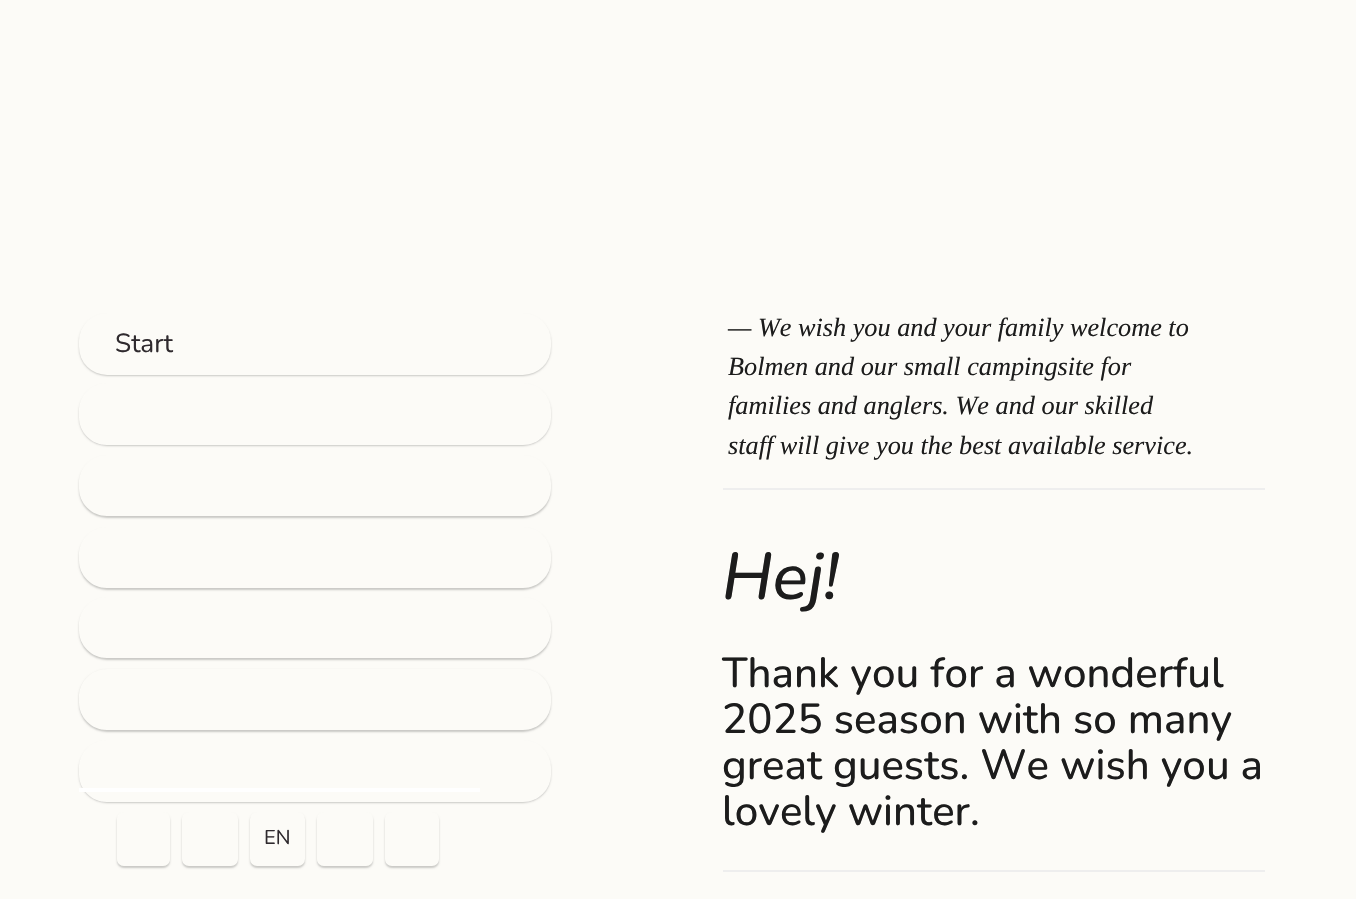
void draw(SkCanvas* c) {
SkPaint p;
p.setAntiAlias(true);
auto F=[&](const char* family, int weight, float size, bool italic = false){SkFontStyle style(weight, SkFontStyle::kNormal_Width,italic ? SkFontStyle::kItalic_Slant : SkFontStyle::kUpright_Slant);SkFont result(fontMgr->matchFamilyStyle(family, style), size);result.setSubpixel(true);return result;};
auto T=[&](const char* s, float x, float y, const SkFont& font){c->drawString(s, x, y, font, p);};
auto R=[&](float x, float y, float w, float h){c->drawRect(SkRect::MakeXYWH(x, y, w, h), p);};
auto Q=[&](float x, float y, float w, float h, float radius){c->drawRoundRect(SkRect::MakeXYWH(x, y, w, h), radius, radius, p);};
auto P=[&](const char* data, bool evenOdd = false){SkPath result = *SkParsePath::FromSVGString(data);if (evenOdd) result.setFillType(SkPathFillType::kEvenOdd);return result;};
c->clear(0xfffcfbf7);
p.setColor(0x33000000);
p.setMaskFilter(SkMaskFilter::MakeBlur(kNormal_SkBlurStyle, 1));
c->drawRoundRect(SkRect::MakeXYWH(79,315,472,61),28,28,p);
p.setMaskFilter(nullptr);
p.setColor(0xfffcfbf7);
Q(79,313,472,62,28);
auto f1 = F("Nunito",400,26.25);
p.setColor(0xff2f2a2e);
T("Start",115,352,f1);
c->save();
c->clipPath(P("M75 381h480v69h-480zm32 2h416c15.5 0 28 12.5 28 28v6c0 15.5-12.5 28-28 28h-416c-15.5 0-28-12.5-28-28v-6c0-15.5 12.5-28 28-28z",true),true);
p.setColor(0x33000000);
p.setMaskFilter(SkMaskFilter::MakeBlur(kNormal_SkBlurStyle, 1));
c->drawRoundRect(SkRect::MakeXYWH(79,385,472,61),28,28,p);
p.setMaskFilter(nullptr);
c->restore();
p.setColor(0x40fcfbf7);
Q(79,383,472,62,28);
c->save();
c->clipPath(P("M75 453h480v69h-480zm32 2h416c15.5 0 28 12.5 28 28v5c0 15.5-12.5 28-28 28h-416c-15.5 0-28-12.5-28-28v-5c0-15.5 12.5-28 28-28z",true),true);
p.setColor(0x33000000);
p.setMaskFilter(SkMaskFilter::MakeBlur(kNormal_SkBlurStyle, 1));
c->drawRoundRect(SkRect::MakeXYWH(79,457,472,61),28,28,p);
p.setMaskFilter(nullptr);
c->restore();
c->save();
c->clipPath(P("M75 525h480v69h-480zm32 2h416c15.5 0 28 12.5 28 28v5c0 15.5-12.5 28-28 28h-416c-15.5 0-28-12.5-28-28v-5c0-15.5 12.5-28 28-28z",true),true);
p.setMaskFilter(SkMaskFilter::MakeBlur(kNormal_SkBlurStyle, 1));
c->drawRoundRect(SkRect::MakeXYWH(79,529,472,61),28,28,p);
p.setMaskFilter(nullptr);
c->restore();
p.setColor(0x40fcfbf7);
Q(79,527,472,61,28);
c->save();
c->clipPath(P("M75 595h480v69h-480zm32 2h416c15.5 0 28 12.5 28 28v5c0 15.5-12.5 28-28 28h-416c-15.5 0-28-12.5-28-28v-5c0-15.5 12.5-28 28-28z",true),true);
p.setColor(0x33000000);
p.setMaskFilter(SkMaskFilter::MakeBlur(kNormal_SkBlurStyle, 1));
c->drawRoundRect(SkRect::MakeXYWH(79,599,472,61),28,28,p);
p.setMaskFilter(nullptr);
c->restore();
p.setColor(0x40fcfbf7);
Q(79,597,472,61,28);
c->save();
c->clipPath(P("M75 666h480v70h-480zm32 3h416c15.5 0 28 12.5 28 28v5c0 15.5-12.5 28-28 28h-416c-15.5 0-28-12.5-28-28v-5c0-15.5 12.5-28 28-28z",true),true);
p.setColor(0x33000000);
p.setMaskFilter(SkMaskFilter::MakeBlur(kNormal_SkBlurStyle, 1));
c->drawRoundRect(SkRect::MakeXYWH(79,670,472,62),28,28,p);
p.setMaskFilter(nullptr);
c->restore();
p.setColor(0x40fcfbf7);
Q(79,669,472,61,28);
c->save();
c->clipPath(P("M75 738h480v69h-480zm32 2h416c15.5 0 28 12.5 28 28v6c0 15.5-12.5 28-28 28h-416c-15.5 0-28-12.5-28-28v-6c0-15.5 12.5-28 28-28z",true),true);
p.setColor(0x33000000);
p.setMaskFilter(SkMaskFilter::MakeBlur(kNormal_SkBlurStyle, 1));
c->drawRoundRect(SkRect::MakeXYWH(79,742,472,61),28,28,p);
p.setMaskFilter(nullptr);
c->restore();
p.setColor(0x40fcfbf7);
Q(79,740,472,62,28);
p.setColor(0xffffffff);
R(79,788,401,4);
c->save();
c->clipPath(P("M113 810h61v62h-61zm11 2h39c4 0 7 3 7 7v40c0 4-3 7-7 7h-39c-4 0-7-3-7-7v-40c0-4 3-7 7-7z",true),true);
p.setColor(0x33000000);
p.setMaskFilter(SkMaskFilter::MakeBlur(kNormal_SkBlurStyle, 1));
c->drawRoundRect(SkRect::MakeXYWH(117,814,53,54),7,7,p);
p.setMaskFilter(nullptr);
c->restore();
p.setColor(0x59fcfbf7);
Q(117,812,53,54,7);
c->save();
c->clipPath(P("M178 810h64v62h-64zm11 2h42c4 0 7 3 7 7v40c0 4-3 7-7 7h-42c-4 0-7-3-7-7v-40c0-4 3-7 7-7z",true),true);
p.setColor(0x33000000);
p.setMaskFilter(SkMaskFilter::MakeBlur(kNormal_SkBlurStyle, 1));
c->drawRoundRect(SkRect::MakeXYWH(182,814,56,54),7,7,p);
p.setMaskFilter(nullptr);
c->restore();
p.setMaskFilter(SkMaskFilter::MakeBlur(kNormal_SkBlurStyle, 1));
c->drawRoundRect(SkRect::MakeXYWH(250,814,55,54),7,7,p);
p.setMaskFilter(nullptr);
p.setColor(0xfffcfbf7);
Q(250,812,55,54,7);
auto f2 = F("Nunito",400,20);
p.setColor(0xff2f2a2e);
T("EN",264,844,f2);
c->save();
c->clipPath(P("M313 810h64v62h-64zm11 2h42c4 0 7 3 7 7v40c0 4-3 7-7 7h-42c-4 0-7-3-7-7v-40c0-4 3-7 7-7z",true),true);
p.setColor(0x33000000);
p.setMaskFilter(SkMaskFilter::MakeBlur(kNormal_SkBlurStyle, 1));
c->drawRoundRect(SkRect::MakeXYWH(317,814,56,54),7,7,p);
p.setMaskFilter(nullptr);
c->restore();
p.setColor(0x59fcfbf7);
Q(317,812,56,54,7);
c->save();
c->clipPath(P("M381 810h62v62h-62zm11 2h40c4 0 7 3 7 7v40c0 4-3 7-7 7h-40c-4 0-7-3-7-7v-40c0-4 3-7 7-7z",true),true);
p.setColor(0x33000000);
p.setMaskFilter(SkMaskFilter::MakeBlur(kNormal_SkBlurStyle, 1));
c->drawRoundRect(SkRect::MakeXYWH(385,814,54,54),7,7,p);
p.setMaskFilter(nullptr);
c->restore();
p.setColor(0xffeeeeee);
R(723,488,542,2);
auto f3 = F("Liberation Serif",400,26.25,true);
p.setColor(0xff1c1c1c);
T("— We wish you and your family welcome to",728,336,f3);
T("Bolmen and our small campingsite for",728,375,f3);
T("families and anglers. We and our skilled",728,414,f3);
T("staff will give you the best available service.",728,454,f3);
auto f4 = F("Nunito",500,66,true);
T("Hej!",722,599,f4);
auto f5 = F("Nunito",500,42);
T("Thank you for a wonderful",722,687,f5);
T("2025 season with so many",722,733,f5);
T("great guests. We wish you a",722,779,f5);
T("lovely winter.",722,825,f5);
p.setColor(0xffeeeeee);
R(723,870,542,2);
}
